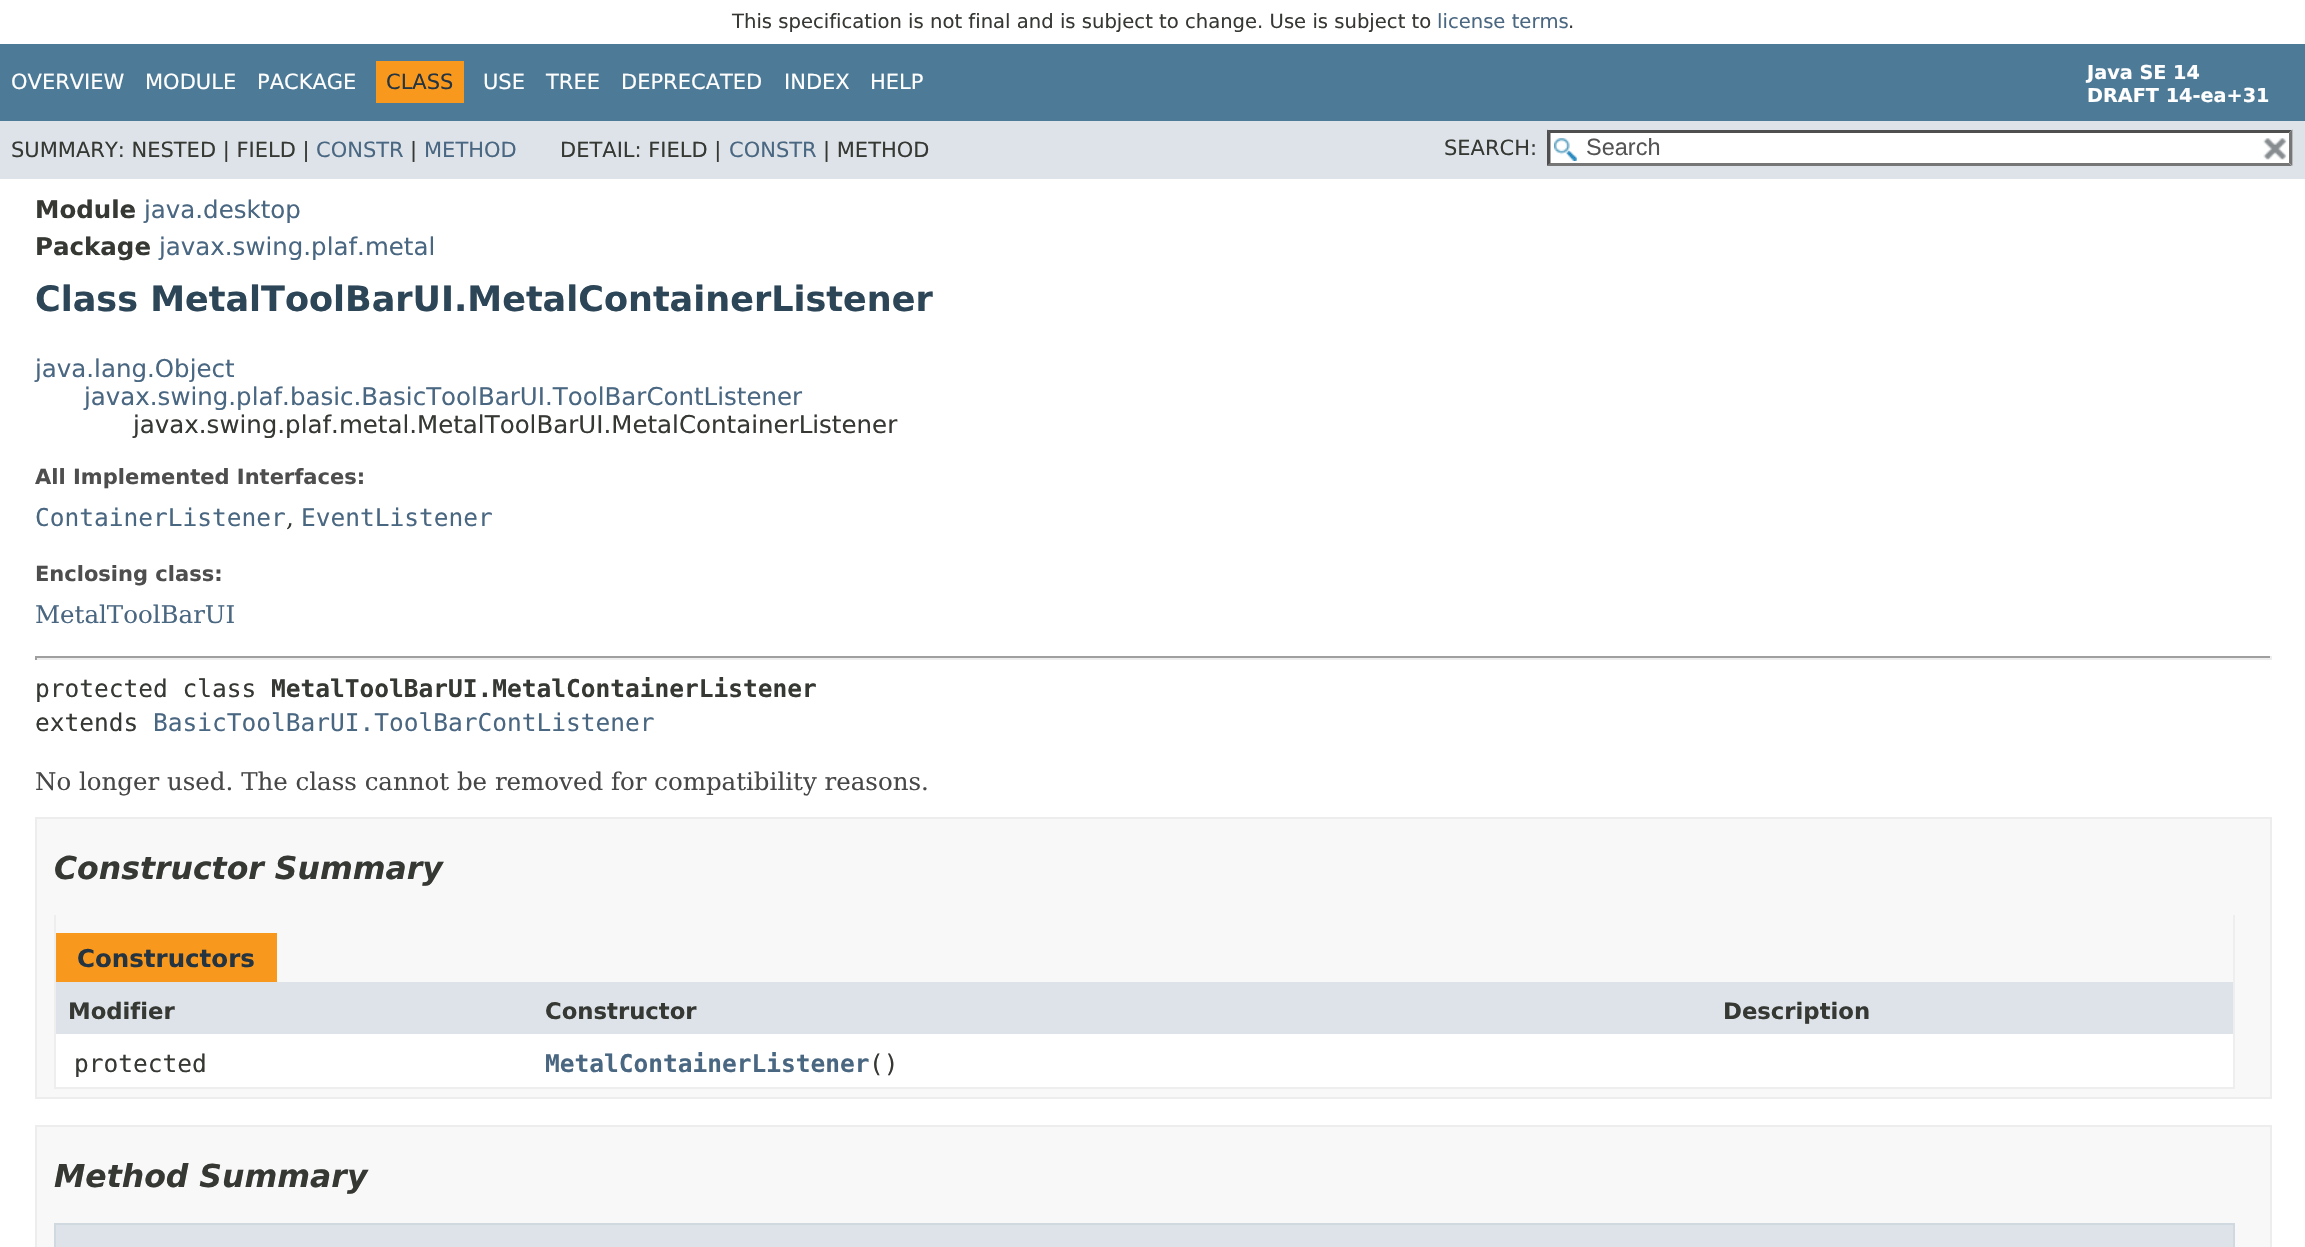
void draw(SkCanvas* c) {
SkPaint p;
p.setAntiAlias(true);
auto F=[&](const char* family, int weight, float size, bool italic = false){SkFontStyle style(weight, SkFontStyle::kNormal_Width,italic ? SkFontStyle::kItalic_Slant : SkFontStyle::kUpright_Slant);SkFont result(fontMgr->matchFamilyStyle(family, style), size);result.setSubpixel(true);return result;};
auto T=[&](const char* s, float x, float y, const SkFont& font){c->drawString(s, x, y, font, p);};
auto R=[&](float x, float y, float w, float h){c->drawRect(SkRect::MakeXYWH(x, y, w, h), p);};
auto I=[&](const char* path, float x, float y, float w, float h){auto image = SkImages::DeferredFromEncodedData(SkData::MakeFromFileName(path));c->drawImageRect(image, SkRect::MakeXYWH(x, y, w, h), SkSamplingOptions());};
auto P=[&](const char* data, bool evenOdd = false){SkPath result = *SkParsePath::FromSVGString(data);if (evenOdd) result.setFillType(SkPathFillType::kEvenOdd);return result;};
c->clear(0xffffffff);
auto f1 = F("DejaVu Sans",400,19.6);
p.setColor(0xff353833);
T("This specification is not final and is subject to change. Use is subject to",732,28,f1);
p.setColor(0xff4a6782);
T("license terms",1437,28,f1);
p.setColor(0xff353833);
T(".",1568,28,f1);
p.setColor(0xff4d7a97);
R(0,44,2305,77);
auto f2 = F("DejaVu Sans",400,21);
p.setColor(0xffffffff);
T("OVERVIEW",11,89,f2);
T("MODULE",145,89,f2);
T("PACKAGE",257,89,f2);
p.setColor(0xfff8981d);
R(376,61,88,42);
p.setColor(0xff253441);
T("CLASS",386,89,f2);
p.setColor(0xffffffff);
T("USE",483,89,f2);
T("TREE",546,89,f2);
T("DEPRECATED",621,89,f2);
T("INDEX",784,89,f2);
T("HELP",870,89,f2);
auto f3 = F("DejaVu Sans",700,19.25);
T("Java SE 14",2087,79,f3);
T("DRAFT 14-ea+31",2087,102,f3);
p.setColor(0xffdee3e9);
R(0,121,2305,58);
p.setColor(0xff353833);
T("SUMMARY: NESTED | FIELD |",11,157,f2);
p.setColor(0xff4a6782);
T("CONSTR",316,157,f2);
p.setColor(0xff353833);
T("|",410,157,f2);
p.setColor(0xff4a6782);
T("METHOD",424,157,f2);
p.setColor(0xff353833);
T("DETAIL: FIELD |",560,157,f2);
p.setColor(0xff4a6782);
T("CONSTR",729,157,f2);
p.setColor(0xff353833);
T("| METHOD",823,157,f2);
T("SEARCH:",1444,155,f2);
p.setColor(0xffffffff);
R(1547,130,746,36);
I("1.png",1554,138,23,23);
p.setColor(0xff4f4f4f);
c->drawPath(P("M1547 130h745l-3 3h-739z"),p);
p.setColor(0xff767676);
c->drawPath(P("M2292.5 129.5v36.5l-3.5-3v-30z"),p);
c->drawPath(P("M2292 166h-745l3-3h739z"),p);
p.setColor(0xff4f4f4f);
c->drawPath(P("M1547 166v-36.5l3.5 3.5v30z"),p);
auto f4 = F("Liberation Sans",400,23.5);
p.setColor(0xff545454);
T("Search",1586,155,f4);
I("2.png",2263,138,24,22);
auto f5 = F("DejaVu Sans",700,24.5);
p.setColor(0xff353833);
T("Module",35,218,f5);
auto f6 = F("DejaVu Sans",400,24.5);
p.setColor(0xff4a6782);
T("java.desktop",144,218,f6);
p.setColor(0xff353833);
T("Package",35,255,f5);
p.setColor(0xff4a6782);
T("javax.swing.plaf.metal",159,255,f6);
auto f7 = F("DejaVu Sans",700,35);
p.setColor(0xff2c4557);
T("Class MetalToolBarUI.MetalContainerListener",35,311,f7);
p.setColor(0xff4a6782);
T("java.lang.Object",35,377,f6);
T("javax.swing.plaf.basic.BasicToolBarUI.ToolBarContListener",84,405,f6);
p.setColor(0xff353833);
T("javax.swing.plaf.metal.MetalToolBarUI.MetalContainerListener",133,433,f6);
auto f8 = F("DejaVu Sans",700,21);
p.setColor(0xff4e4e4e);
T("All Implemented Interfaces:",35,484,f8);
auto f9 = F("DejaVu Sans Mono",400,24.5);
p.setColor(0xff4a6782);
T("ContainerListener",35,526,f9);
auto f10 = F("DejaVu Serif",400,24.5);
p.setColor(0xff353833);
T(",",286,526,f10);
p.setColor(0xff4a6782);
T("EventListener",301,526,f9);
p.setColor(0xff4e4e4e);
T("Enclosing class:",35,581,f8);
p.setColor(0xff4a6782);
T("MetalToolBarUI",35,623,f10);
p.setColor(0xff9f9f9f);
R(35,656,2237,2);
p.setColor(0xffeeeeee);
R(2270,656,2,4);
R(35,658,2237,2);
p.setColor(0xff9f9f9f);
R(35,656,2,4);
p.setColor(0xff353833);
T("protected class",35,697,f9);
auto f11 = F("DejaVu Sans Mono",700,24.5);
T("MetalToolBarUI.MetalContainerListener",271,697,f11);
T("extends",35,731,f9);
p.setColor(0xff4a6782);
T("BasicToolBarUI.ToolBarContListener",153,731,f9);
p.setColor(0xff474747);
T("No longer used. The class cannot be removed for compatibility reasons.",35,790,f10);
p.setColor(0xfff8f8f8);
c->drawRect(SkRect::MakeXYWH(36,818,2235,280),p);
p.setStroke(true);
p.setStrokeWidth(2);
p.setColor(0xffededed);
c->drawRect(SkRect::MakeXYWH(36,818,2235,280),p);
auto f12 = F("DejaVu Sans",700,31.5,true);
p.setStroke(false);
p.setColor(0xff353833);
T("Constructor Summary",54,879,f12);
p.setColor(0xffeeeeee);
R(2233,915,2,174);
R(54,1087,2181,2);
R(54,915,2,174);
p.setColor(0xfff8981d);
R(56,933,221,49);
p.setColor(0xff253441);
T("Constructors",77,967,f5);
p.setColor(0xffdee3e9);
R(56,982,2177,52);
auto f13 = F("DejaVu Sans",700,22.75);
p.setColor(0xff353833);
T("Modifier",68,1019,f13);
T("Constructor",545,1019,f13);
T("Description",1723,1019,f13);
p.setColor(0xffffffff);
R(56,1034,2177,53);
p.setColor(0xff353833);
T("protected",74,1072,f9);
p.setColor(0xff4a6782);
T("MetalContainerListener",545,1072,f11);
p.setColor(0xff353833);
T("()",869,1072,f9);
p.setColor(0xfff8f8f8);
c->drawRect(SkRect::MakeXYWH(36,1126,2235,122),p);
p.setStroke(true);
p.setColor(0xffededed);
c->drawRect(SkRect::MakeXYWH(36,1126,2235,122),p);
p.setStroke(false);
p.setColor(0xff353833);
T("Method Summary",54,1187,f12);
p.setColor(0xffdee3e9);
c->drawRect(SkRect::MakeXYWH(55,1224,2179,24),p);
p.setStroke(true);
p.setColor(0xffd0d9e0);
c->drawRect(SkRect::MakeXYWH(55,1224,2179,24),p);
}
